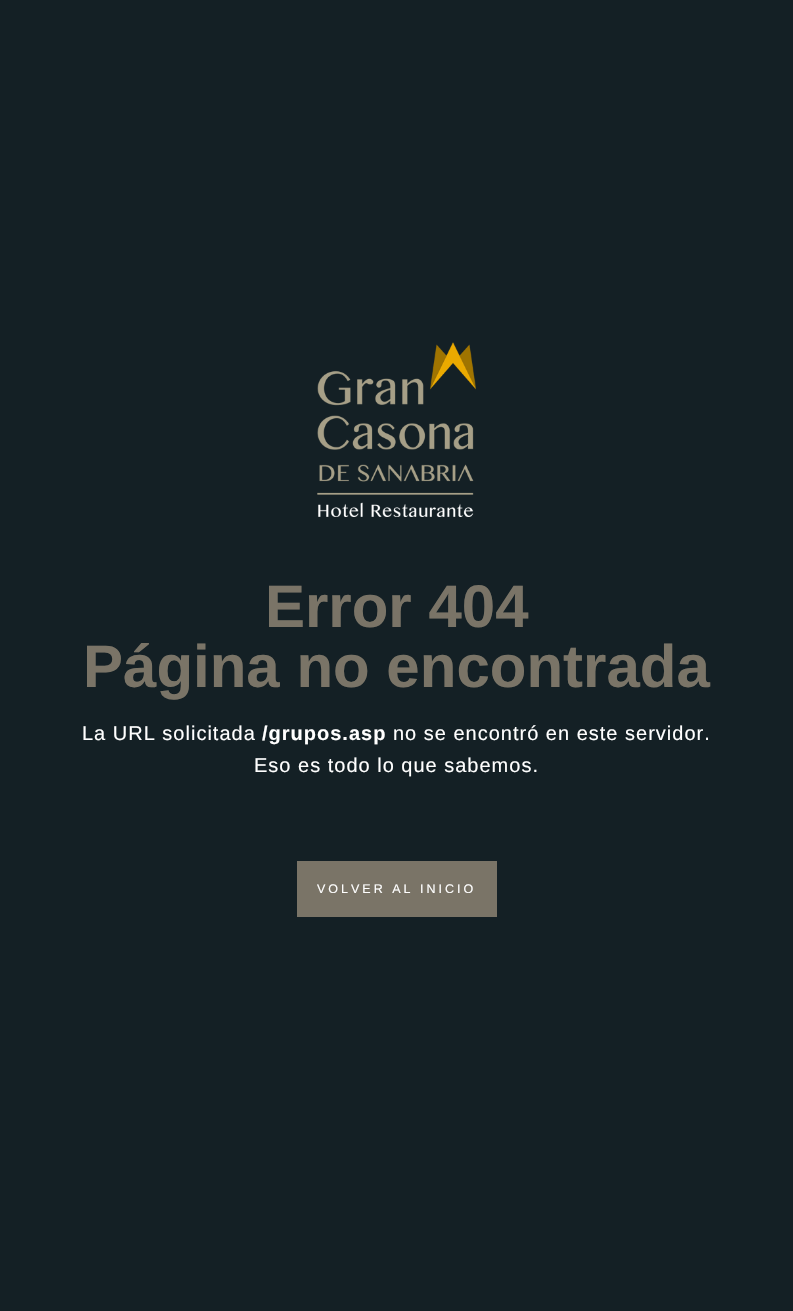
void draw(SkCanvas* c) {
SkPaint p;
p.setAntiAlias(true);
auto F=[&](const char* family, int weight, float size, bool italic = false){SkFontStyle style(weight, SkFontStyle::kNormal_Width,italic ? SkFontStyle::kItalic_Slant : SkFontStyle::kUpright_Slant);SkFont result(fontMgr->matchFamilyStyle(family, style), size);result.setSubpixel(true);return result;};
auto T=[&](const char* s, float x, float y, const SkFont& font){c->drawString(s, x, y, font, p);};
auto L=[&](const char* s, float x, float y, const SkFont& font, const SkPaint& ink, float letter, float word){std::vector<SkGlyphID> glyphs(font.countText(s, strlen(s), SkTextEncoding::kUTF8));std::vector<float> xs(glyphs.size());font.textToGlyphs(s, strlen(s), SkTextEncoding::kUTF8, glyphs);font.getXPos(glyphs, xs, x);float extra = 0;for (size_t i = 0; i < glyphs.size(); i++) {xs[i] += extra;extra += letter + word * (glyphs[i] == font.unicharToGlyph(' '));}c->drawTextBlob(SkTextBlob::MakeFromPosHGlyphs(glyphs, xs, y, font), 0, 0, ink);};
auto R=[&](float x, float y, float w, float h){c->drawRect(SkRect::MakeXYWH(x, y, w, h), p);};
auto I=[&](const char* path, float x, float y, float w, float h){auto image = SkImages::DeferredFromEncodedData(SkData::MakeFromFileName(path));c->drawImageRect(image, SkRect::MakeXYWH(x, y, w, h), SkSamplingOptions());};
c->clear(0xff142025);
I("1.png",317,342,159,175);
auto f1 = F("Liberation Sans",700,60);
p.setColor(0xff7a7467);
T("Error 404",265,627,f1);
T("Página no encontrada",83,687,f1);
auto f2 = F("Liberation Sans",400,20);
p.setColor(0xffffffff);
L("La URL solicitada",82,740,f2,p,1,0);
auto f3 = F("Liberation Sans",700,20);
L("/grupos.asp",262,740,f3,p,1,0);
L("no se encontró en este servidor.",393,740,f2,p,1,0);
L("Eso es todo lo que sabemos.",254,772,f2,p,1,0);
p.setColor(0xff7a7467);
R(297,861,200,56);
auto f4 = F("Liberation Sans",400,12.5);
p.setColor(0xffffffff);
L("VOLVER AL INICIO",317,893,f4,p,3,0);
}
